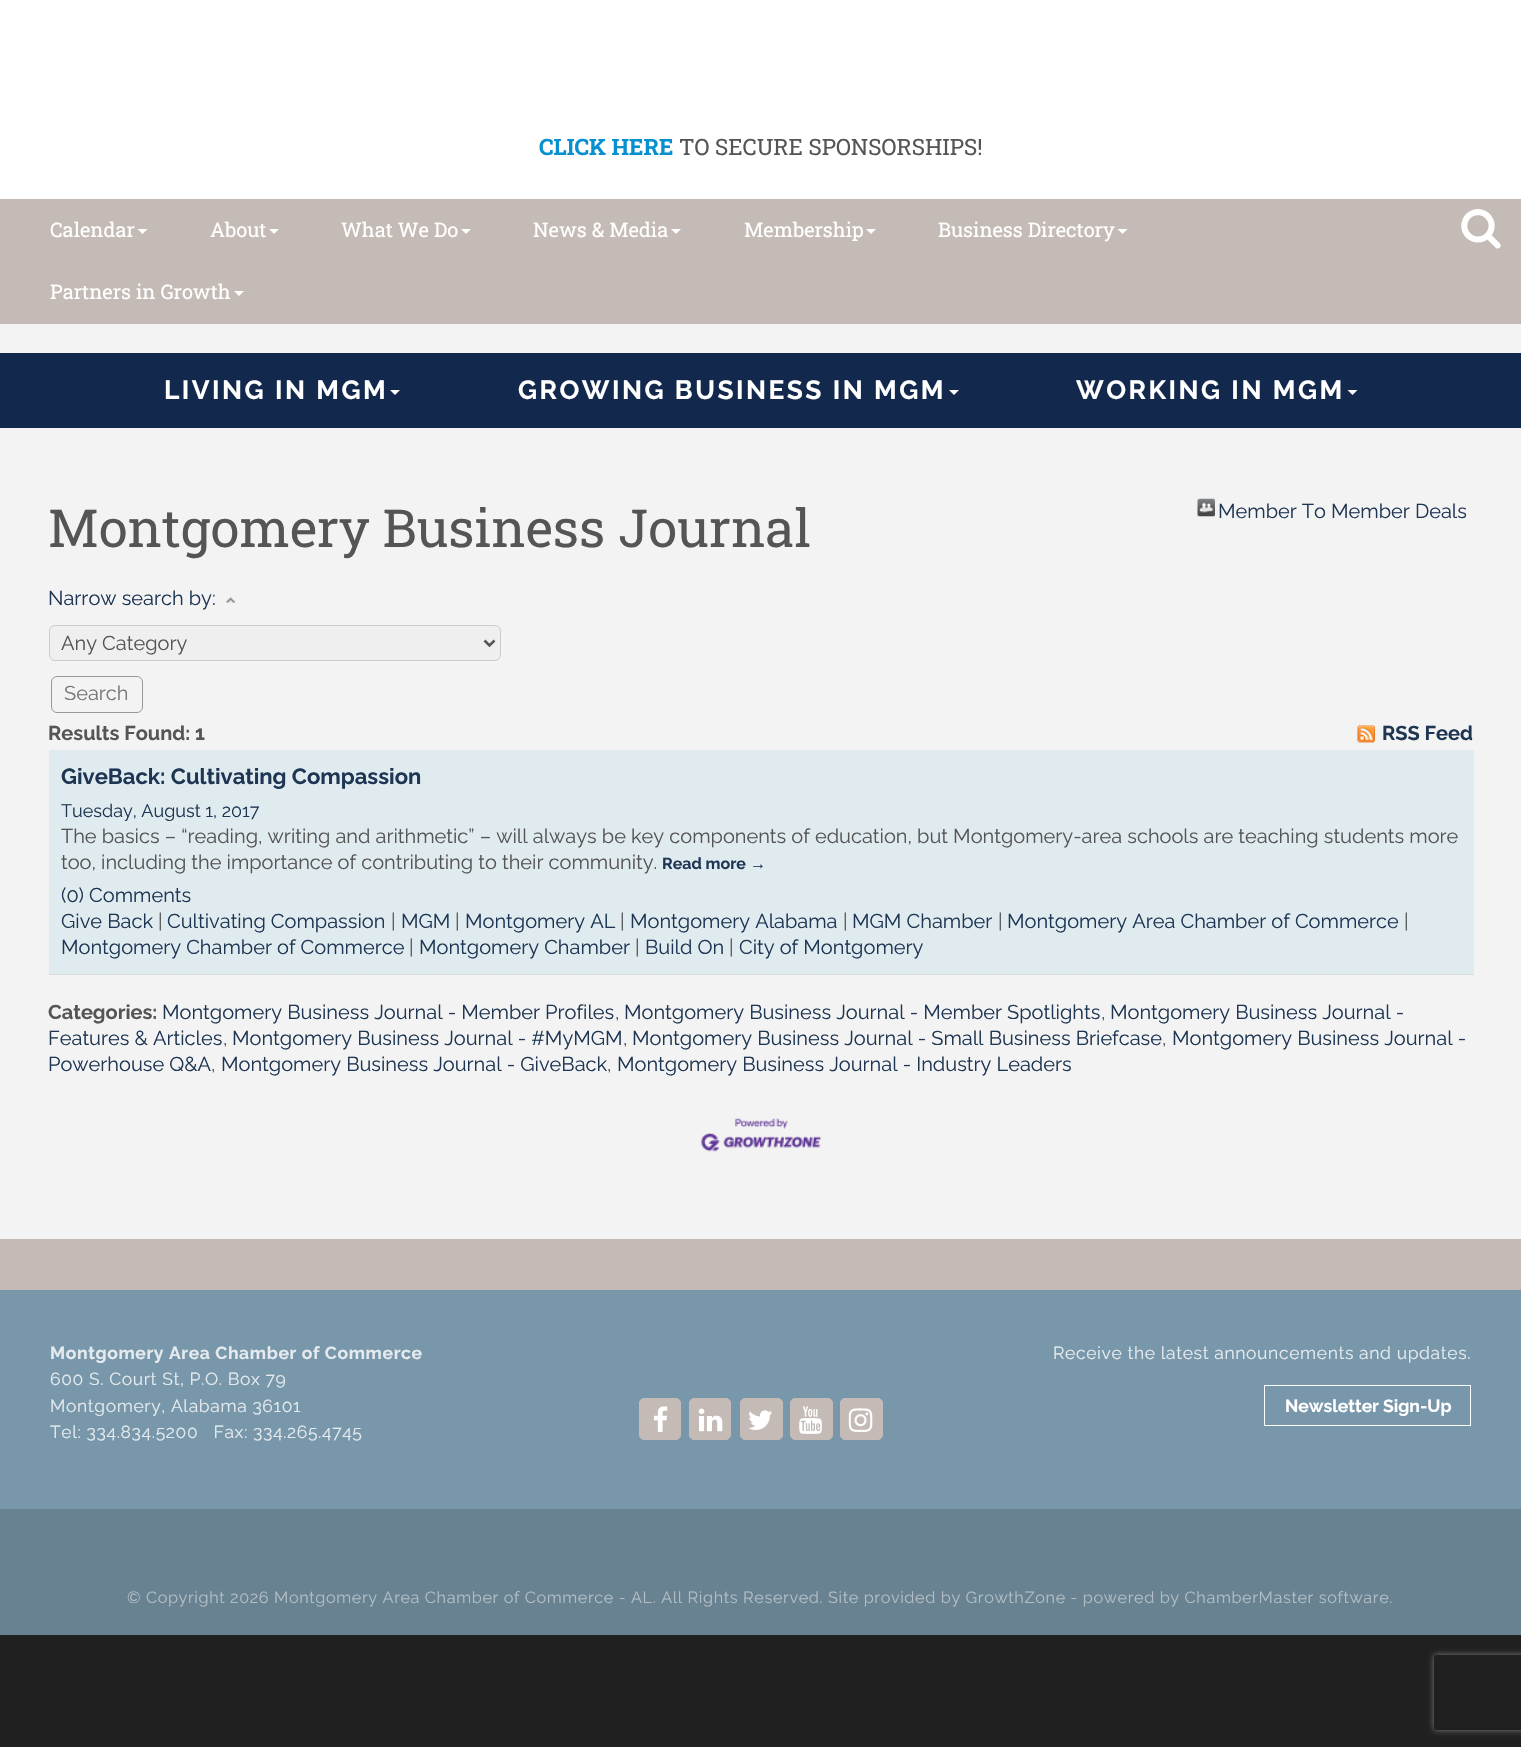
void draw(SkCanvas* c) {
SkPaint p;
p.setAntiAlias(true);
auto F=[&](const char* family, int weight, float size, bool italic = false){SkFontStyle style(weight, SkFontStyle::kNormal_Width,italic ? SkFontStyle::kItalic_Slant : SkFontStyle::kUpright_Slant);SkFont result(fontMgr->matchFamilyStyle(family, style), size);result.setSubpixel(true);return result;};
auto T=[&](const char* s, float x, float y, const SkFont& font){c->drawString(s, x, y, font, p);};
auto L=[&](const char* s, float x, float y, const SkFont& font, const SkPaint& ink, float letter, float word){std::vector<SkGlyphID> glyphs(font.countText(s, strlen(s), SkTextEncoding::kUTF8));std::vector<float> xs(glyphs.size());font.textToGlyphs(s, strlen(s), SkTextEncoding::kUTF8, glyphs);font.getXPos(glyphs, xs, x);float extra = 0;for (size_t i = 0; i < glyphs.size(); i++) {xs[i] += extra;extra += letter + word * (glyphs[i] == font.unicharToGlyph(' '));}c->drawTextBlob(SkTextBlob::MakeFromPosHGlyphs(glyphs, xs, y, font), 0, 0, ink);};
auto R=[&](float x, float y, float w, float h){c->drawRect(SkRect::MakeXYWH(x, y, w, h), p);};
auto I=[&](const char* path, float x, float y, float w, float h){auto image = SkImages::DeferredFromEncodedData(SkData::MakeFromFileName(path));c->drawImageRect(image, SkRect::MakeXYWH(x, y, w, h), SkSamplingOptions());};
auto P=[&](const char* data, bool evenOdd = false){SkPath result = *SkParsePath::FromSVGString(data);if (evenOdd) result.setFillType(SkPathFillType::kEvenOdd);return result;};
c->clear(0xff202020);
p.setColor(0xfff3f3f3);
R(0,324,1521,915);
p.setColor(0xffffffff);
R(0,0,1521,199);
auto f1 = F("Roboto Slab",700,22.5);
p.setColor(0xff0690cf);
T("CLICK HERE",539,155,f1);
auto f2 = F("Roboto Slab",400,22.5);
p.setColor(0xff555555);
T("TO SECURE SPONSORSHIPS!",679,155,f2);
p.setColor(0xffc5bbb6);
R(0,199,1521,125);
auto f3 = F("Roboto Slab",400,20);
p.setColor(0xffffffff);
T("Calendar",50,237,f3);
c->drawPath(P("M137.5 229h10l-5 5z"),p);
T("About",210,237,f3);
c->drawPath(P("M269 229h10l-5 5z"),p);
T("What We Do",341,237,f3);
c->drawPath(P("M461 229h10l-5 5z"),p);
T("News & Media",533,237,f3);
c->drawPath(P("M671 229h10l-5 5z"),p);
T("Membership",744,237,f3);
c->drawPath(P("M866 229h10l-5 5z"),p);
T("Business Directory",938,237,f3);
c->drawPath(P("M1117.5 229h10l-5 5z"),p);
T("Partners in Growth",50,299,f3);
c->drawPath(P("M234 291h10l-5 5z"),p);
p.setColor(0xffc5bbb6);
c->drawPath(P("M1459 200h39c2 0 3 2 3 4c0-6-6-5-10-5h-26c-4 0-10-1-10 5c0-2 2-4 4-4z"),p);
I("1.png",1461,209,40,40);
p.setColor(0xff12284c);
R(0,353,1521,75);
auto f4 = F("Raleway",700,26.25);
p.setColor(0xffffffff);
L("LIVING IN MGM",164,399,f4,p,2.5,0);
c->drawPath(P("M390 390h10l-5 5z"),p);
L("GROWING BUSINESS IN MGM",518,399,f4,p,2.5,0);
c->drawPath(P("M949 390h10l-5 5z"),p);
L("WORKING IN MGM",1076,399,f4,p,2.5,0);
c->drawPath(P("M1347.5 390h10l-5 5z"),p);
auto f5 = F("Roboto Slab",400,52.5);
p.setColor(0xff555555);
T("Montgomery Business Journal",48,547,f5);
I("2.png",1197,498,18,19);
auto f6 = F("Raleway",400,20);
p.setColor(0xff1e3653);
T("Member To Member Deals",1218,518,f6);
T("Narrow search by:",48,605,f6);
I("3.png",226,597,10,6);
p.setColor(0xffefefef);
c->drawRoundRect(SkRect::MakeXYWH(49.5,625.5,451,35),5.5,5.5,p);
p.setStroke(true);
p.setStrokeWidth(1);
p.setColor(0xffcccccc);
c->drawRoundRect(SkRect::MakeXYWH(49.5,625.5,451,35),5.5,5.5,p);
p.setStrokeWidth(2.5);
p.setColor(0xff555555);
c->drawPath(P("M484.5 640.5l5 5l5-5"),p);
p.setStroke(false);
T("Any Category",61,650,f6);
p.setStroke(true);
p.setStrokeWidth(1);
p.setColor(0xff999999);
c->drawRoundRect(SkRect::MakeXYWH(51.5,676.5,91,36),5.5,5.5,p);
p.setStroke(false);
p.setColor(0xff777777);
T("Search",64,700,f6);
auto f7 = F("Raleway",700,20);
p.setColor(0xff555555);
T("Results Found: 1",48,740,f7);
I("4.png",1357,725,18,18);
p.setColor(0xff1e3653);
T("RSS Feed",1382,740,f7);
p.setColor(0xffe0ebf0);
R(49,750,1425,225);
p.setStroke(true);
p.setStrokeWidth(1.2);
p.setColor(0xffcccccc);
p.setPathEffect(SkDashPathEffect::Make({{1.25f,1.25f}}, 0));
c->drawPath(P("M49 974.5h1425"),p);
p.setPathEffect(nullptr);
auto f8 = F("Raleway",700,22);
p.setStroke(false);
p.setColor(0xff1e3653);
T("GiveBack: Cultivating Compassion",61,784,f8);
auto f9 = F("Raleway",400,18);
T("Tuesday, August 1, 2017",61,817,f9);
p.setColor(0xff555555);
T("The basics – “reading, writing and arithmetic” – will always be key components of education, but Montgomery-area schools are teaching students more",61,843,f6);
T("too, including the importance of contributing to their community.",61,869,f6);
auto f10 = F("Raleway",700,16);
p.setColor(0xff1e3653);
T("Read more",662,869,f10);
auto f11 = F("Liberation Sans",700,16);
T("→",750,869,f11);
T("(0) Comments",61,902,f6);
T("Give Back",61,928,f6);
p.setColor(0xff555555);
T("|",158,928,f6);
p.setColor(0xff1e3653);
T("Cultivating Compassion",167,928,f6);
p.setColor(0xff555555);
T("|",391,928,f6);
p.setColor(0xff1e3653);
T("MGM",401,928,f6);
p.setColor(0xff555555);
T("|",455,928,f6);
p.setColor(0xff1e3653);
T("Montgomery AL",465,928,f6);
p.setColor(0xff555555);
T("|",620,928,f6);
p.setColor(0xff1e3653);
T("Montgomery Alabama",630,928,f6);
p.setColor(0xff555555);
T("|",843,928,f6);
p.setColor(0xff1e3653);
T("MGM Chamber",852,928,f6);
p.setColor(0xff555555);
T("|",998,928,f6);
p.setColor(0xff1e3653);
T("Montgomery Area Chamber of Commerce",1007,928,f6);
p.setColor(0xff555555);
T("|",1404,928,f6);
p.setColor(0xff1e3653);
T("Montgomery Chamber of Commerce",61,954,f6);
p.setColor(0xff555555);
T("|",409,954,f6);
p.setColor(0xff1e3653);
T("Montgomery Chamber",419,954,f6);
p.setColor(0xff555555);
T("|",635,954,f6);
p.setColor(0xff1e3653);
T("Build On",645,954,f6);
p.setColor(0xff555555);
T("|",729,954,f6);
p.setColor(0xff1e3653);
T("City of Montgomery",739,954,f6);
p.setColor(0xff555555);
T("Categories:",48,1019,f7);
p.setColor(0xff1e3653);
T("Montgomery Business Journal - Member Profiles",162,1019,f6);
p.setColor(0xff555555);
T(",",615,1019,f6);
p.setColor(0xff1e3653);
T("Montgomery Business Journal - Member Spotlights",624,1019,f6);
p.setColor(0xff555555);
T(",",1101,1019,f6);
p.setColor(0xff1e3653);
T("Montgomery Business Journal -",1110,1019,f6);
T("Features & Articles",48,1045,f6);
p.setColor(0xff555555);
T(",",223,1045,f6);
p.setColor(0xff1e3653);
T("Montgomery Business Journal - #MyMGM",232,1045,f6);
p.setColor(0xff555555);
T(",",623,1045,f6);
p.setColor(0xff1e3653);
T("Montgomery Business Journal - Small Business Briefcase",632,1045,f6);
p.setColor(0xff555555);
T(",",1162,1045,f6);
p.setColor(0xff1e3653);
T("Montgomery Business Journal -",1172,1045,f6);
T("Powerhouse Q&A",48,1071,f6);
p.setColor(0xff555555);
T(",",211,1071,f6);
p.setColor(0xff1e3653);
T("Montgomery Business Journal - GiveBack",221,1071,f6);
p.setColor(0xff555555);
T(",",607,1071,f6);
p.setColor(0xff1e3653);
T("Montgomery Business Journal - Industry Leaders",617,1071,f6);
I("5.png",701,1118,121,34);
p.setColor(0xff7897aa);
R(0,1290,1521,219);
p.setColor(0xffc5bbb6);
R(0,1239,1521,51);
auto f12 = F("Raleway",700,17.5);
p.setColor(0xffe4eaee);
L("Montgomery Area Chamber of Commerce",50,1359,f12,p,.62,0);
auto f13 = F("Raleway",400,17.5);
L("600 S. Court St, P.O. Box 79",50,1385,f13,p,.62,0);
L("Montgomery, Alabama 36101",50,1412,f13,p,.62,0);
L("Tel: 334.834.5200   Fax: 334.265.4745",50,1438,f13,p,.62,0);
p.setColor(0xffc5bbb6);
c->drawRoundRect(SkRect::MakeXYWH(639.5,1398.5,41,41),4.5,4.5,p);
p.setStroke(true);
p.setStrokeWidth(1);
c->drawRoundRect(SkRect::MakeXYWH(639.5,1398.5,41,41),4.5,4.5,p);
I("6.png",654,1406,14,26);
p.setStroke(false);
c->drawRoundRect(SkRect::MakeXYWH(689.5,1398.5,41,41),4.5,4.5,p);
p.setStroke(true);
c->drawRoundRect(SkRect::MakeXYWH(689.5,1398.5,41,41),4.5,4.5,p);
I("7.png",698,1408,25,24);
p.setStroke(false);
c->drawRoundRect(SkRect::MakeXYWH(740.5,1398.5,42,41),4.5,4.5,p);
p.setStroke(true);
c->drawRoundRect(SkRect::MakeXYWH(740.5,1398.5,42,41),4.5,4.5,p);
I("8.png",748,1410,24,20);
p.setStroke(false);
c->drawRoundRect(SkRect::MakeXYWH(790.5,1398.5,42,41),4.5,4.5,p);
p.setStroke(true);
c->drawRoundRect(SkRect::MakeXYWH(790.5,1398.5,42,41),4.5,4.5,p);
I("9.png",799,1406,23,28);
p.setStroke(false);
c->drawRoundRect(SkRect::MakeXYWH(840.5,1398.5,42,41),4.5,4.5,p);
p.setStroke(true);
c->drawRoundRect(SkRect::MakeXYWH(840.5,1398.5,42,41),4.5,4.5,p);
I("10.png",848,1408,25,24);
p.setStroke(false);
p.setColor(0xffe4eaee);
L("Receive the latest announcements and updates.",1053,1359,f13,p,.62,0);
p.setStroke(true);
p.setColor(0xffffffff);
c->drawRect(SkRect::MakeXYWH(1264.5,1385.5,206,40),p);
p.setStroke(false);
T("Newsletter Sign-Up",1285,1412,f12);
p.setColor(0xff688291);
R(0,1509,1521,126);
auto f14 = F("Raleway",400,16.25);
p.setColor(0xffb1bec6);
L("© Copyright 2026 Montgomery Area Chamber of Commerce - AL. All Rights Reserved. Site provided by GrowthZone - powered by ChamberMaster software.",127,1603,f14,p,.62,0);
c->save();
c->clipPath(P("M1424 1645h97v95h-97zm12.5 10h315c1.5 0 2.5 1 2.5 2.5v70c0 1.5-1 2.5-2.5 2.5h-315c-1.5 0-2.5-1-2.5-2.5v-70c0-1.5 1-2.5 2.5-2.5z",true),true);
p.setColor(0xff808080);
p.setMaskFilter(SkMaskFilter::MakeBlur(kNormal_SkBlurStyle, 3));
c->drawRoundRect(SkRect::MakeXYWH(1434,1655,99,75),2.5,2.5,p);
p.setMaskFilter(nullptr);
c->restore();
}
